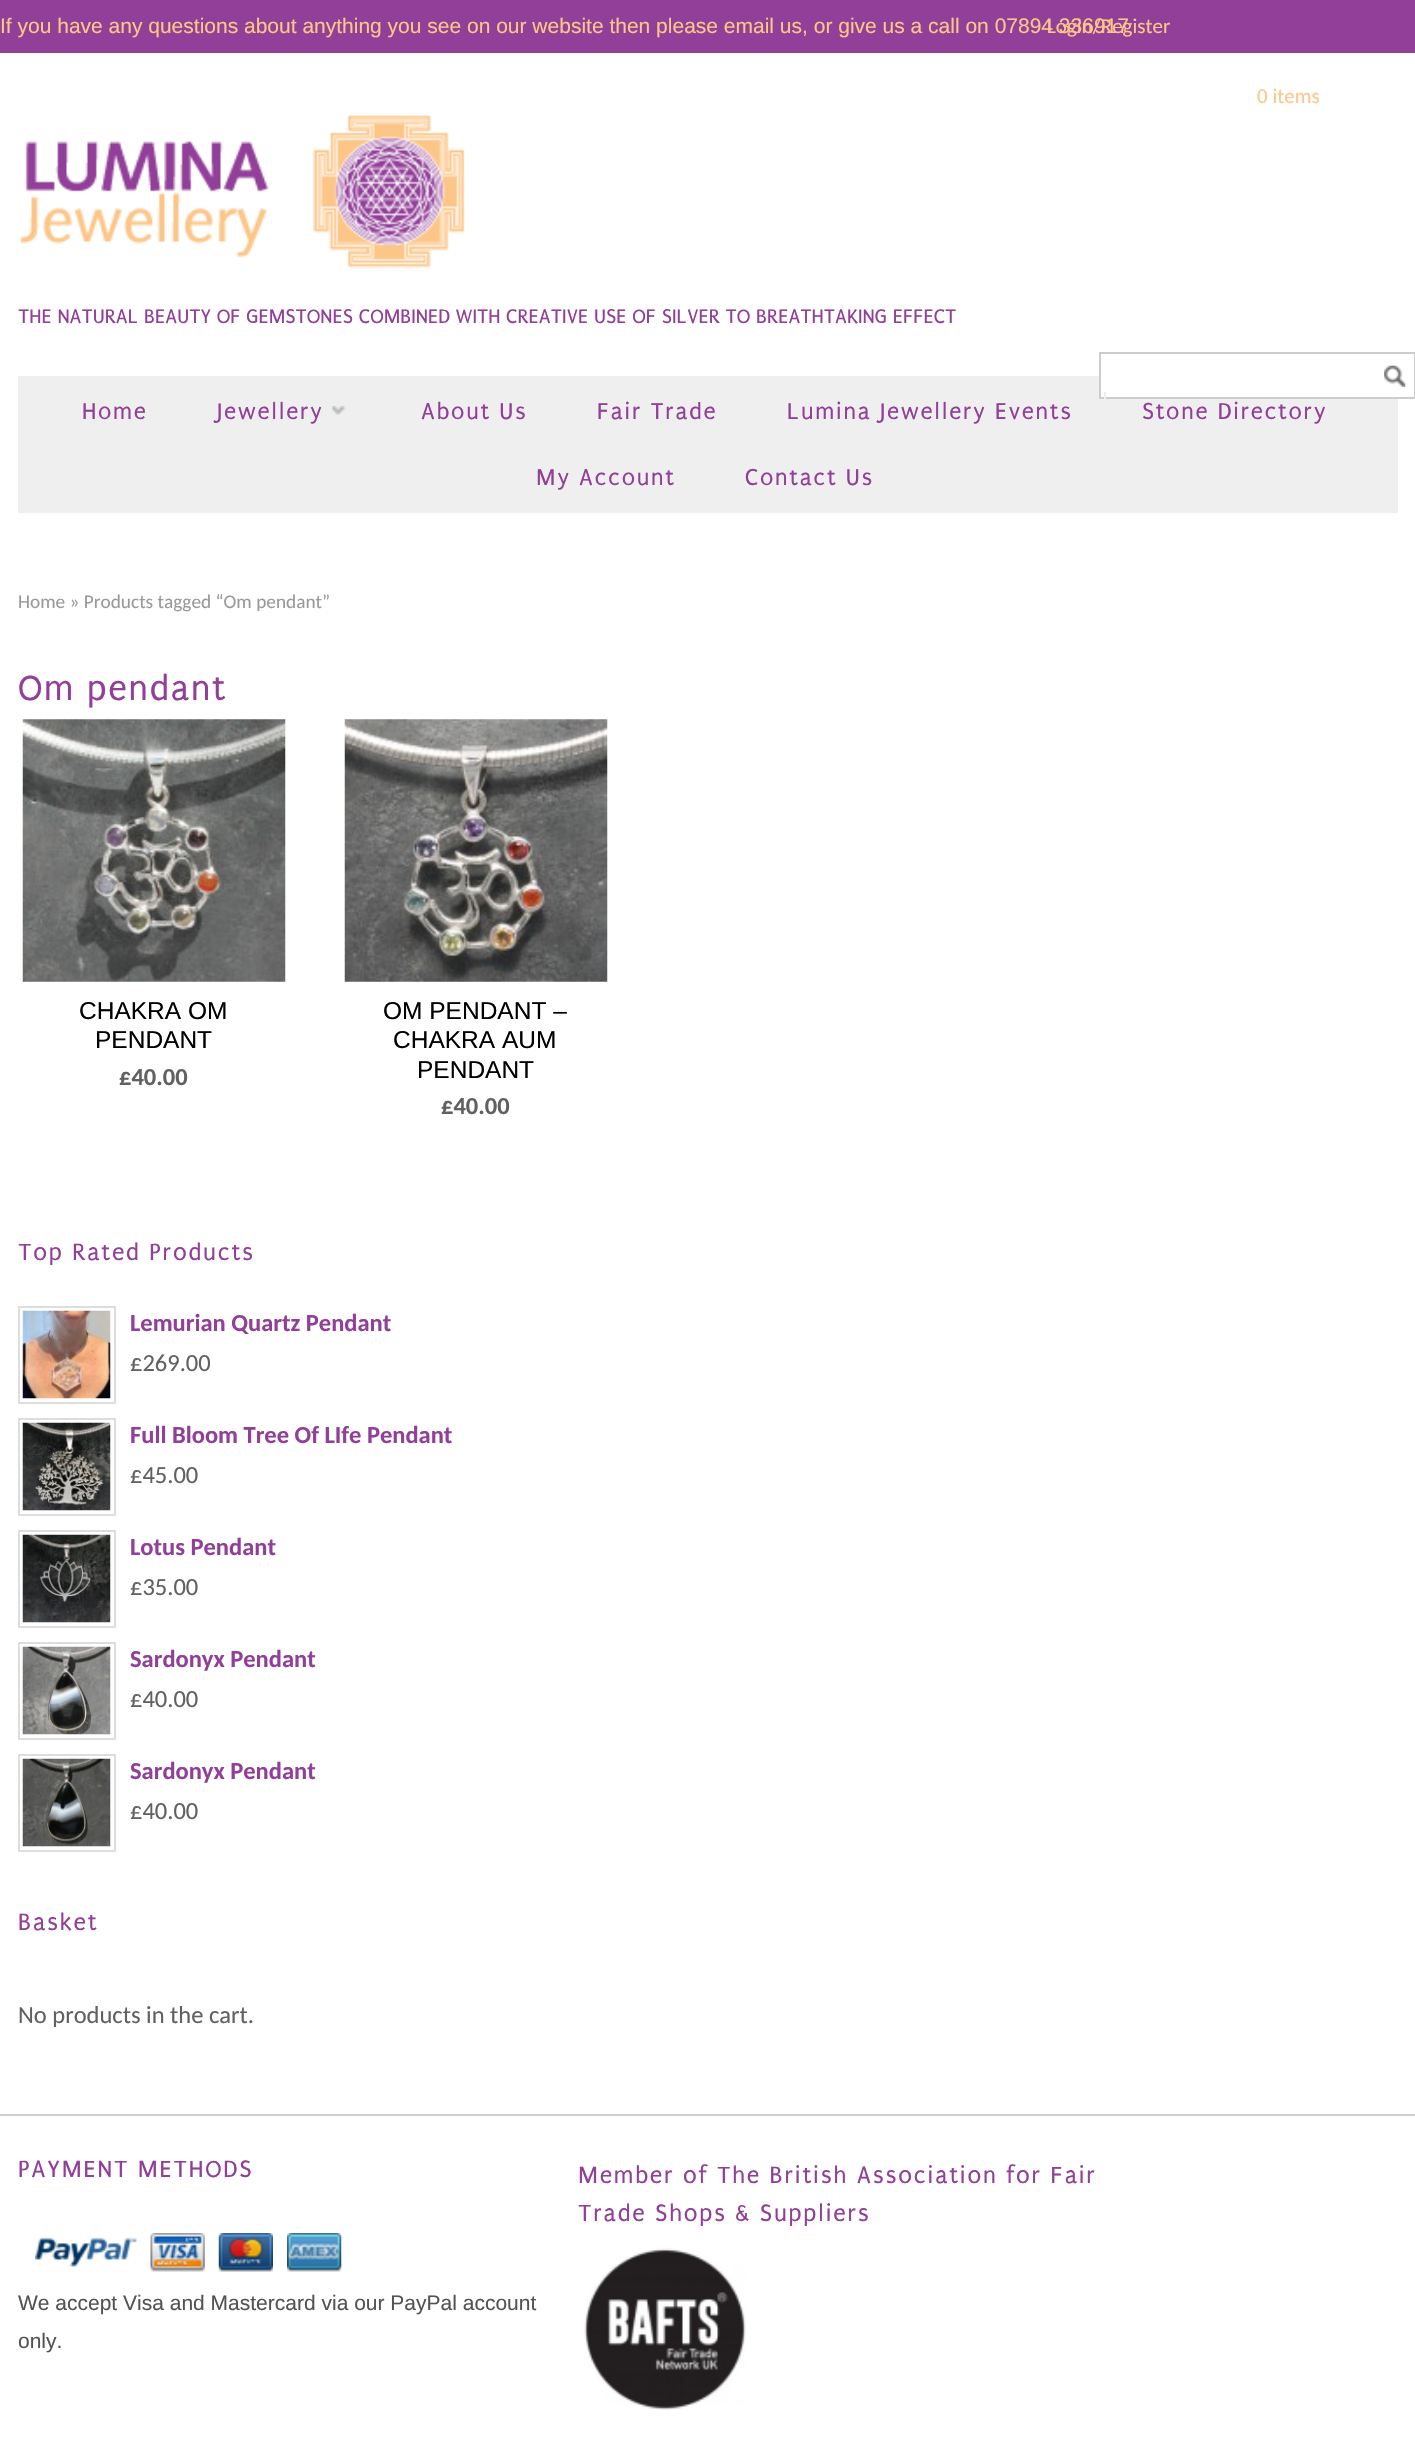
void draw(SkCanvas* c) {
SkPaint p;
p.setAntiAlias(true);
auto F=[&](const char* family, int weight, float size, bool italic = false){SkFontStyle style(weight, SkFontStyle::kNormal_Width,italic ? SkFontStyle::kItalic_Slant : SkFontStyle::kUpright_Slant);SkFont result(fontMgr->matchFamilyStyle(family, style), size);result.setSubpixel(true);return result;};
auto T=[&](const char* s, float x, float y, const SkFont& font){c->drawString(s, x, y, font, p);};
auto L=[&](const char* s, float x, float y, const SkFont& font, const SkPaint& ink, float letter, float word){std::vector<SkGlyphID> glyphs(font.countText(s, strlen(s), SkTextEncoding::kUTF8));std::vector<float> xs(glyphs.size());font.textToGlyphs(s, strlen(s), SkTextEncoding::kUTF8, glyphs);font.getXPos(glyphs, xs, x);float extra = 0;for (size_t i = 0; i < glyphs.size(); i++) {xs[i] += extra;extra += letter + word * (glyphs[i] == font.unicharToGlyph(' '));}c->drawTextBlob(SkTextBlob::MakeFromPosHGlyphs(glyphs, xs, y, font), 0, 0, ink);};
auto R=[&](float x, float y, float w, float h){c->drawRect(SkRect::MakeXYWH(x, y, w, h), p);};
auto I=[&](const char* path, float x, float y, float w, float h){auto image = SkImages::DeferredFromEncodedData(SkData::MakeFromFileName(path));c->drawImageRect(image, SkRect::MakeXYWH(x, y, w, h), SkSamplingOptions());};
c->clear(0xffffffff);
p.setColor(0xff913f98);
R(0,0,1415,53);
auto f1 = F("Liberation Sans",400,21);
p.setColor(0xfffdc689);
T("If you have any questions about anything you see on our website then please email us, or give us a call on 07894 336917",0,33,f1);
auto f2 = F("Carlito",400,21);
T("Login/Register",1047,33,f2);
T("0 items",1257,103,f2);
I("1.png",20,115,445,153);
auto f3 = F("Puritan",400,21);
p.setColor(0xff913f98);
T("THE NATURAL BEAUTY OF GEMSTONES COMBINED WITH CREATIVE USE OF SILVER TO BREATHTAKING EFFECT",18,323,f3);
p.setColor(0xffefefef);
R(18,376,1380,137);
p.setColor(0xffffffff);
R(1101,376,297,21);
p.setStroke(true);
p.setStrokeWidth(2);
p.setColor(0xffcccccc);
c->drawRect(SkRect::MakeXYWH(1100,353,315,45),p);
I("2.png",1384,365,22,22);
auto f4 = F("Puritan",400,24.5);
p.setStroke(false);
p.setColor(0xff913f98);
L("Home",82,419,f4,p,1.75,0);
L("Jewellery",217,419,f4,p,1.75,0);
I("3.png",332,406,14,9);
L("About Us",421,419,f4,p,1.75,0);
L("Fair Trade",597,419,f4,p,1.75,0);
L("Lumina Jewellery Events",787,419,f4,p,1.75,0);
p.setColor(0xffefefef);
R(1104,392,2,7);
p.setColor(0xff913f98);
L("Stone Directory",1142,419,f4,p,1.75,0);
L("My Account",536,485,f4,p,1.75,0);
L("Contact Us",745,485,f4,p,1.75,0);
auto f5 = F("Carlito",400,19.3);
p.setColor(0xff999999);
T("Home » Products tagged “Om pendant”",18,608,f5);
auto f6 = F("Puritan",400,37.75);
p.setColor(0xff913f98);
L("Om pendant",18,700,f6,p,1.75,0);
I("4.png",22,719,264,263);
auto f7 = F("Liberation Sans",400,24.5);
p.setColor(0xff000000);
T("CHAKRA OM",79,1019,f7);
T("PENDANT",95,1048,f7);
auto f8 = F("Carlito",700,24.5);
p.setColor(0xff636060);
T("£40.00",119,1085,f8);
I("5.png",344,719,264,263);
p.setColor(0xff000000);
T("OM PENDANT –",383,1019,f7);
T("CHAKRA AUM",393,1048,f7);
T("PENDANT",417,1078,f7);
p.setColor(0xff636060);
T("£40.00",441,1114,f8);
auto f9 = F("Puritan",400,25.2);
p.setColor(0xff913f98);
L("Top Rated Products",18,1260,f9,p,1.75,0);
p.setStroke(true);
p.setColor(0xffdddddd);
c->drawRect(SkRect::MakeXYWH(19,1307,96,96),p);
I("6.png",22,1310,89,89);
p.setStroke(false);
p.setColor(0xff913f98);
T("Lemurian Quartz Pendant",130,1331,f8);
auto f10 = F("Carlito",400,24.5);
p.setColor(0xff636060);
T("£269.00",130,1371,f10);
p.setStroke(true);
p.setColor(0xffdddddd);
c->drawRect(SkRect::MakeXYWH(19,1419,96,96),p);
I("7.png",22,1422,89,89);
p.setStroke(false);
p.setColor(0xff913f98);
T("Full Bloom Tree Of LIfe Pendant",130,1443,f8);
p.setColor(0xff636060);
T("£45.00",130,1483,f10);
p.setStroke(true);
p.setColor(0xffdddddd);
c->drawRect(SkRect::MakeXYWH(19,1531,96,96),p);
I("8.png",22,1534,89,89);
p.setStroke(false);
p.setColor(0xff913f98);
T("Lotus Pendant",130,1555,f8);
p.setColor(0xff636060);
T("£35.00",130,1595,f10);
p.setStroke(true);
p.setColor(0xffdddddd);
c->drawRect(SkRect::MakeXYWH(19,1643,96,96),p);
I("9.png",22,1646,89,89);
p.setStroke(false);
p.setColor(0xff913f98);
T("Sardonyx Pendant",130,1667,f8);
p.setColor(0xff636060);
T("£40.00",130,1707,f10);
p.setStroke(true);
p.setColor(0xffdddddd);
c->drawRect(SkRect::MakeXYWH(19,1755,96,96),p);
I("10.png",22,1758,89,89);
p.setStroke(false);
p.setColor(0xff913f98);
T("Sardonyx Pendant",130,1779,f8);
p.setColor(0xff636060);
T("£40.00",130,1819,f10);
p.setColor(0xff913f98);
L("Basket",18,1930,f9,p,1.75,0);
p.setColor(0xff636060);
T("No products in the cart.",18,2023,f10);
p.setColor(0xffcfcfcf);
R(0,2114,1415,2);
p.setColor(0xff913f98);
L("PAYMENT METHODS",18,2177,f9,p,1.75,0);
I("11.png",35,2237,102,30);
I("12.png",150,2233,55,39);
I("13.png",218,2233,55,39);
I("14.png",287,2233,55,39);
p.setColor(0xff545252);
T("We accept Visa and Mastercard via our PayPal account",18,2310,f1);
T("only.",18,2348,f1);
p.setColor(0xff913f98);
L("Member of The British Association for Fair",578,2183,f9,p,1.75,0);
L("Trade Shops & Suppliers",578,2221,f9,p,1.75,0);
I("15.png",584,2248,162,162);
}
